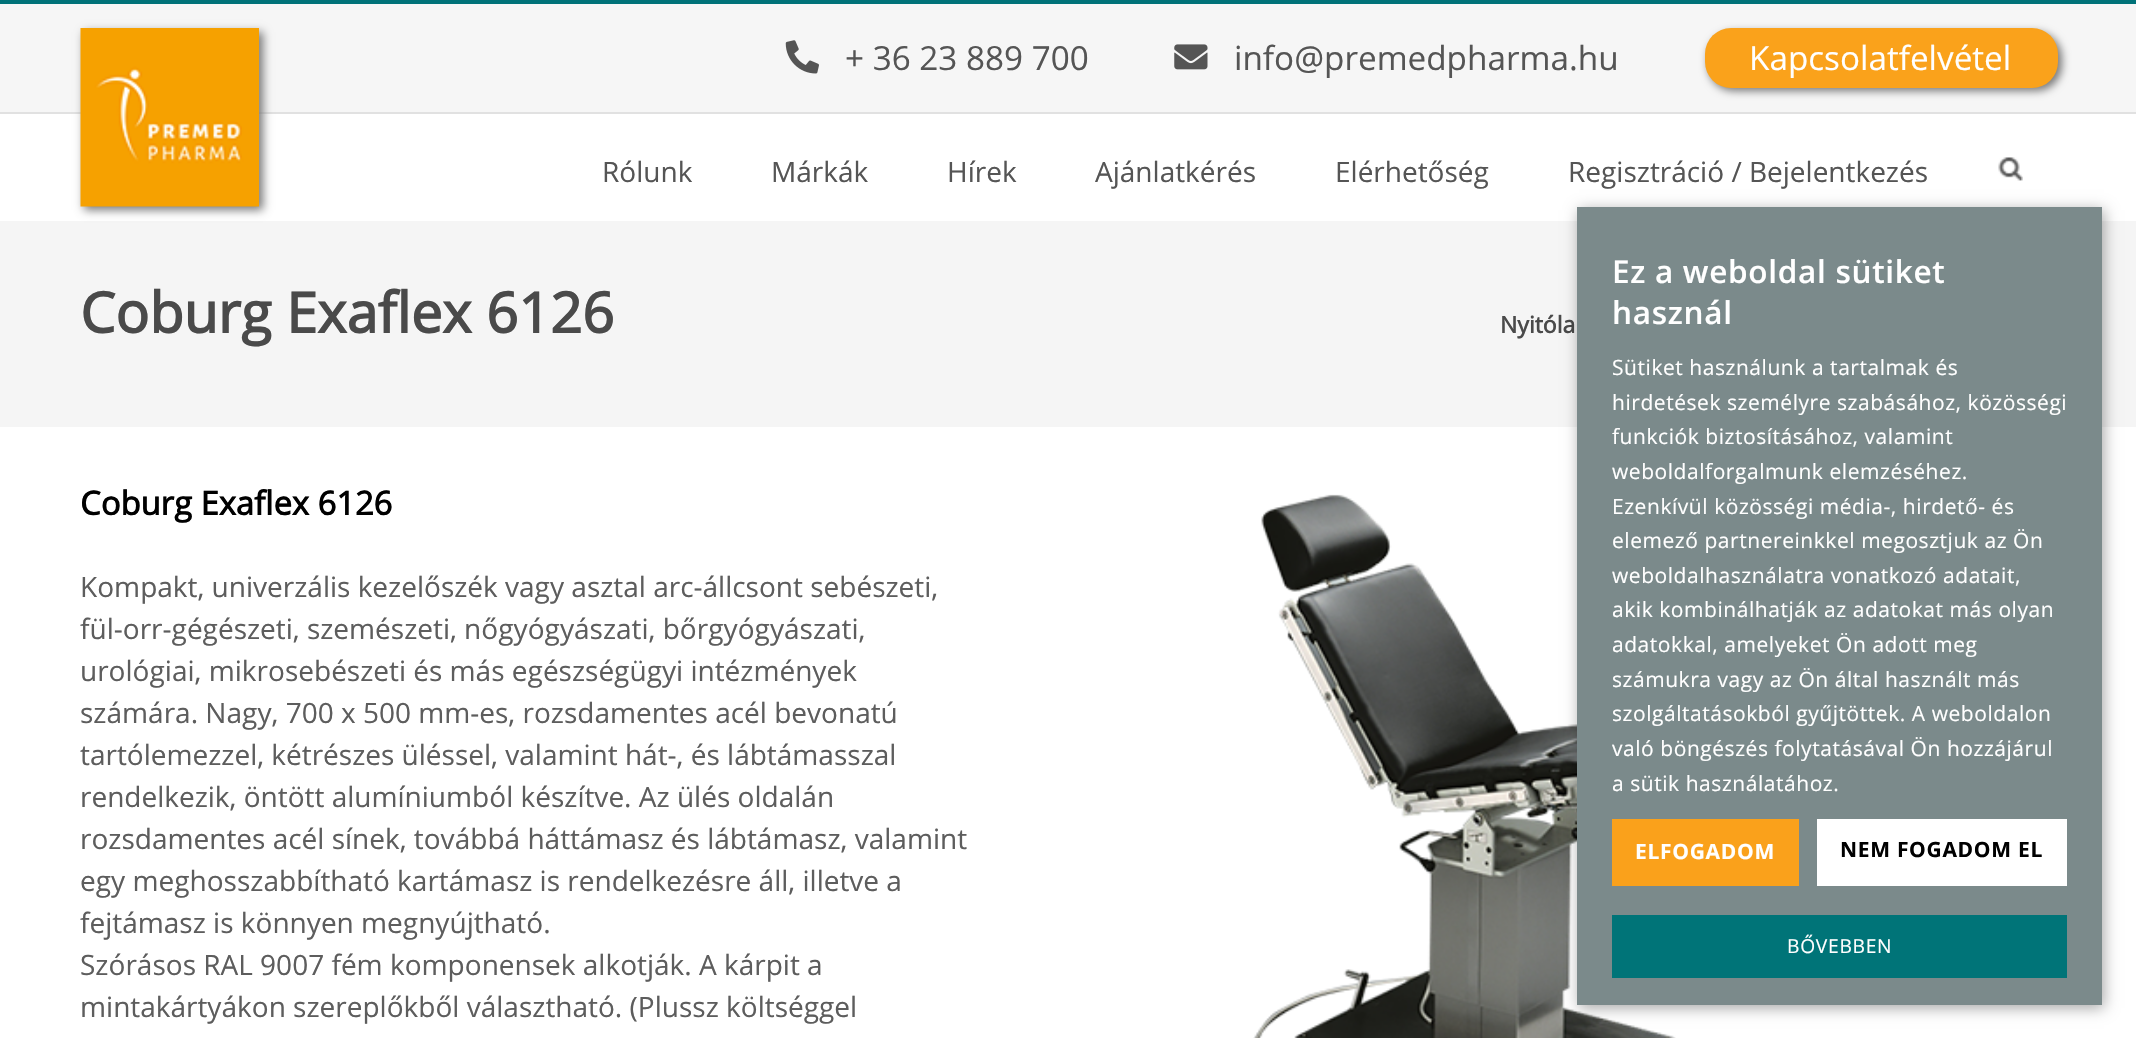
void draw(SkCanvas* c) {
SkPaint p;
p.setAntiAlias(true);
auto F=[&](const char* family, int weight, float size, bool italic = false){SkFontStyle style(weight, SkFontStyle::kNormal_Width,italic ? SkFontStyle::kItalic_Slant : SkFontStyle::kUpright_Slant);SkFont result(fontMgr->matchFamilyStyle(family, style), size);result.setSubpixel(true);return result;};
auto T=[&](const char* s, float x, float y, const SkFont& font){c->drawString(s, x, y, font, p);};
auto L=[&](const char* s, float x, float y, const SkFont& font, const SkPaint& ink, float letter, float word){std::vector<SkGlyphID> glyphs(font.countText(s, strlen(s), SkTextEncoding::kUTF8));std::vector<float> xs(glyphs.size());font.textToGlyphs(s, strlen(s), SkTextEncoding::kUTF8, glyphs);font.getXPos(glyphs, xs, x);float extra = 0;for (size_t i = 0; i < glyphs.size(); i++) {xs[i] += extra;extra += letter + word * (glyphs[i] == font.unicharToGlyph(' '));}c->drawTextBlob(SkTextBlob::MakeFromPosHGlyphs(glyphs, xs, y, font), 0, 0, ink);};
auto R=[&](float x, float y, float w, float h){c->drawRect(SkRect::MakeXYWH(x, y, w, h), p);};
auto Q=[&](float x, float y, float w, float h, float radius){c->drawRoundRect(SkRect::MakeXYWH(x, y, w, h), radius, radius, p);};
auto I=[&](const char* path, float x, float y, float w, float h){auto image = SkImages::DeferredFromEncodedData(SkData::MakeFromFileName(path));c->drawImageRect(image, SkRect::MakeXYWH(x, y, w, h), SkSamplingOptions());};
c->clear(0xffffffff);
p.setColor(0xff007278);
R(0,0,2136,4);
p.setColor(0xfff6f6f6);
R(0,4,2136,108);
p.setColor(0xffe1e1e1);
R(0,112,2136,2);
p.setColor(0xfff5f5f5);
R(0,221,2136,206);
p.setColor(0xff787878);
p.setMaskFilter(SkMaskFilter::MakeBlur(kNormal_SkBlurStyle, 4.5));
c->drawRect(SkRect::MakeXYWH(84,32,179,178),p);
p.setMaskFilter(nullptr);
I("1.png",80,28,179,179);
I("2.png",785,40,34,34);
auto f1 = F("Open Sans",400,33.25);
p.setColor(0xff555555);
T("+ 36 23 889 700",845,70,f1);
I("3.png",1174,44,34,26);
T("info@premedpharma.hu",1234,70,f1);
p.setColor(0xff787878);
p.setMaskFilter(SkMaskFilter::MakeBlur(kNormal_SkBlurStyle, 4.5));
c->drawRoundRect(SkRect::MakeXYWH(1708,32,354,59),26,26,p);
p.setMaskFilter(nullptr);
p.setColor(0xfffaa21b);
Q(1705,28,353,60,26);
p.setColor(0xffffffff);
T("Kapcsolatfelvétel",1749,70,f1);
auto f2 = F("Open Sans",400,28);
p.setColor(0xff555555);
T("Rólunk",602,182,f2);
T("Márkák",771,182,f2);
T("Hírek",947,182,f2);
T("Ajánlatkérés",1095,182,f2);
T("Elérhetőség",1335,182,f2);
T("Regisztráció / Bejelentkezés",1568,182,f2);
I("4.png",1998,157,25,25);
auto f3 = F("Open Sans",700,56);
p.setColor(0xff4a4a4a);
T("Coburg Exaflex 6126",80,333,f3);
auto f4 = F("Open Sans",700,23);
T("Nyitóla",1500,333,f4);
I("5.png",1253,494,423,544);
p.setColor(0x59000000);
p.setMaskFilter(SkMaskFilter::MakeBlur(kNormal_SkBlurStyle, 7));
c->drawRect(SkRect::MakeXYWH(1579,210,525,798),p);
p.setMaskFilter(nullptr);
p.setColor(0xff7b8a8b);
R(1577,207,525,798);
auto f5 = F("Open Sans",600,31.5);
p.setColor(0xffffffff);
L("Ez a weboldal sütiket",1612,283,f5,p,.7,0);
L("használ",1612,324,f5,p,.7,0);
auto f6 = F("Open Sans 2",400,21);
L("Sütiket használunk a tartalmak és",1612,375,f6,p,.55,0);
L("hirdetések személyre szabásához, közösségi",1612,410,f6,p,.55,0);
L("funkciók biztosításához, valamint",1612,444,f6,p,.55,0);
L("weboldalforgalmunk elemzéséhez.",1612,479,f6,p,.55,0);
L("Ezenkívül közösségi média-, hirdető- és",1612,514,f6,p,.55,0);
L("elemező partnereinkkel megosztjuk az Ön",1612,548,f6,p,.55,0);
L("weboldalhasználatra vonatkozó adatait,",1612,583,f6,p,.55,0);
L("akik kombinálhatják az adatokat más olyan",1612,617,f6,p,.55,0);
L("adatokkal, amelyeket Ön adott meg",1612,652,f6,p,.55,0);
L("számukra vagy az Ön által használt más",1612,687,f6,p,.55,0);
L("szolgáltatásokból gyűjtöttek. A weboldalon",1612,721,f6,p,.55,0);
L("való böngészés folytatásával Ön hozzájárul",1612,756,f6,p,.55,0);
L("a sütik használatához.",1612,791,f6,p,.55,0);
p.setColor(0xff007478);
R(1612,915,455,63);
auto f7 = F("Open Sans 2",400,19.25);
p.setColor(0xffffffff);
L("BŐVEBBEN",1787,953,f7,p,.7,0);
p.setColor(0xfffaa11b);
R(1612,819,187,67);
auto f8 = F("Open Sans 2",700,21);
p.setColor(0xffffffff);
L("ELFOGADOM",1635,859,f8,p,.7,0);
R(1817,819,250,67);
p.setColor(0xff000000);
L("NEM FOGADOM EL",1840,857,f8,p,.7,0);
auto f9 = F("Open Sans",700,32.75);
T("Coburg Exaflex 6126",80,515,f9);
p.setColor(0xff5d5d5d);
T("Kompakt, univerzális kezelőszék vagy asztal arc-állcsont sebészeti,",80,597,f2);
T("fül-orr-gégészeti, szemészeti, nőgyógyászati, bőrgyógyászati,",80,639,f2);
T("urológiai, mikrosebészeti és más egészségügyi intézmények",80,681,f2);
T("számára. Nagy, 700 x 500 mm-es, rozsdamentes acél bevonatú",80,723,f2);
T("tartólemezzel, kétrészes üléssel, valamint hát-, és lábtámasszal",80,765,f2);
T("rendelkezik, öntött alumíniumból készítve. Az ülés oldalán",80,807,f2);
T("rozsdamentes acél sínek, továbbá háttámasz és lábtámasz, valamint",80,849,f2);
T("egy meghosszabbítható kartámasz is rendelkezésre áll, illetve a",80,891,f2);
T("fejtámasz is könnyen megnyújtható.",80,933,f2);
T("Szórásos RAL 9007 fém komponensek alkotják. A kárpit a",80,975,f2);
T("mintakártyákon szereplőkből választható. (Plussz költséggel",80,1017,f2);
}
